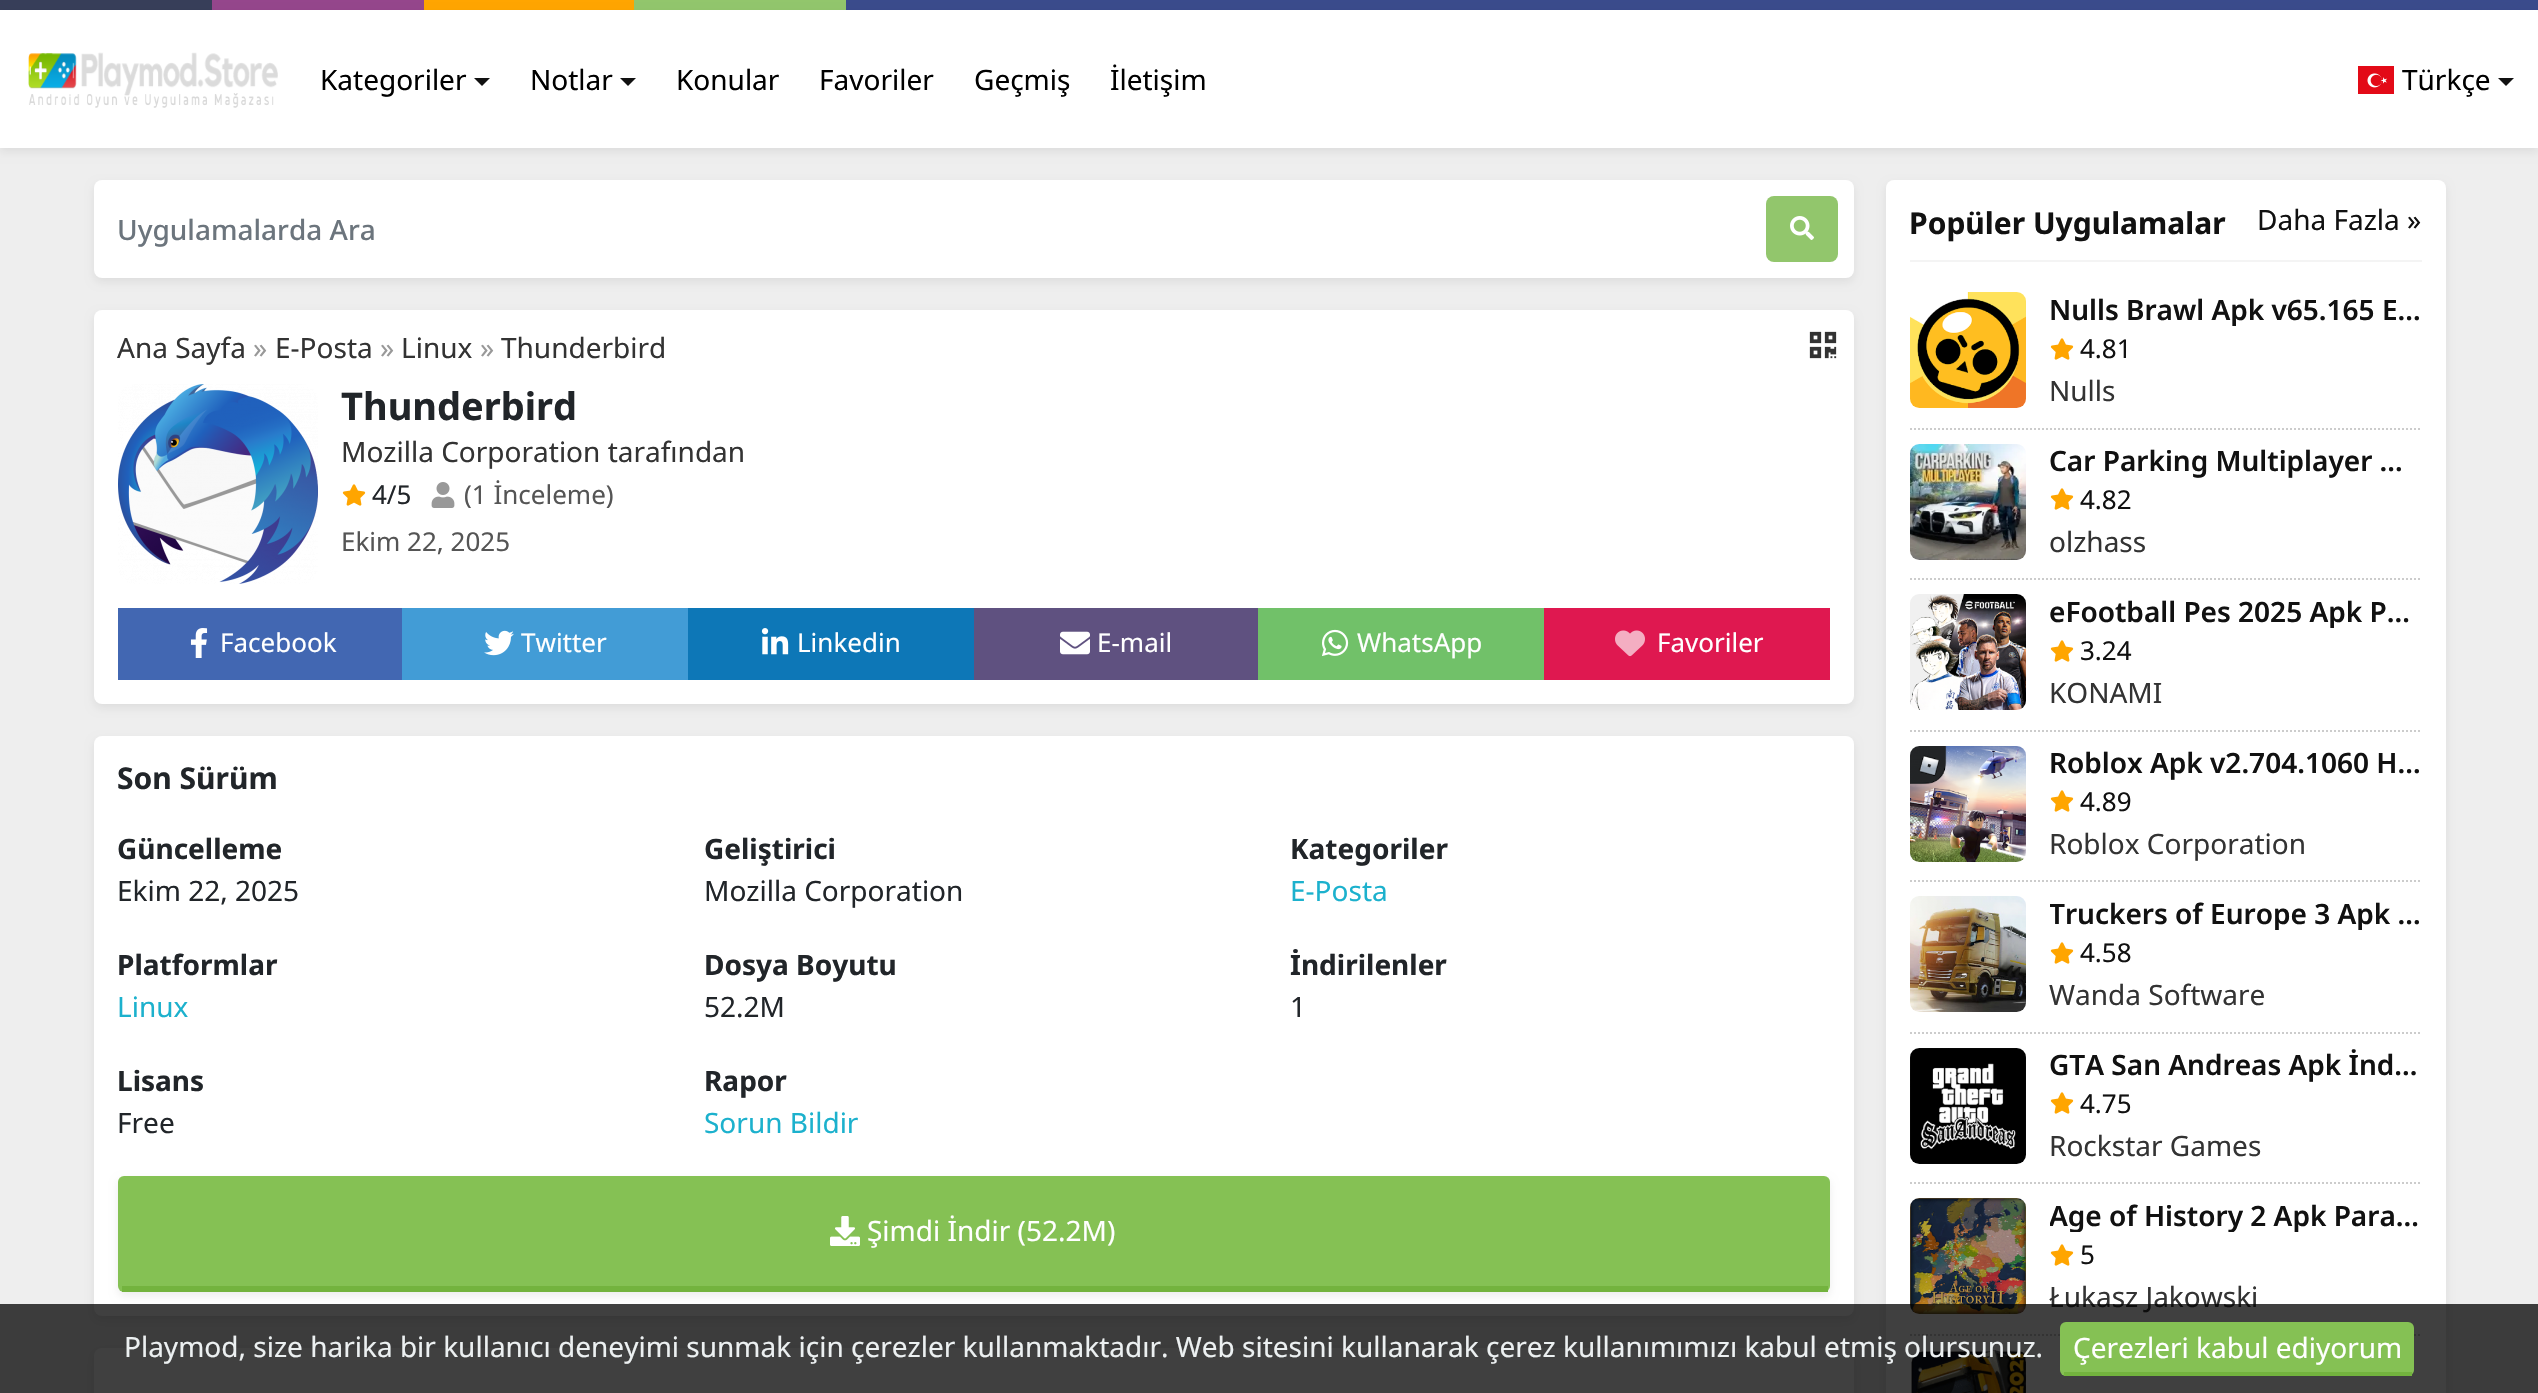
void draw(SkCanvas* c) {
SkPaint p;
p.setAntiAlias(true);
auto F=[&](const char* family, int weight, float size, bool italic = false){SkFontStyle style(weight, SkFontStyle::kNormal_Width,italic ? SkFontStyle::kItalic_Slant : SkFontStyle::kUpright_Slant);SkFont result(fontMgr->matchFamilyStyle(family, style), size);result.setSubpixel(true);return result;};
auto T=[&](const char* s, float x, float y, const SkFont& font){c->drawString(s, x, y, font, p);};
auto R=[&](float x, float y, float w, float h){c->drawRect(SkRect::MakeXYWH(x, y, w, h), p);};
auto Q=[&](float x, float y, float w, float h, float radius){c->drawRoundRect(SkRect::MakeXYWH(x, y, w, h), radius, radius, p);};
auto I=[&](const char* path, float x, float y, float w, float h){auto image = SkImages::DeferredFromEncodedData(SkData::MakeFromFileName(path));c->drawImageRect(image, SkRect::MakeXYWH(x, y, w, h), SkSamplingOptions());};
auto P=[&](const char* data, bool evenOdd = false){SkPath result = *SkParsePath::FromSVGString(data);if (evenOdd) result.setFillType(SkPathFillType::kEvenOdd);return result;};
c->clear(0xffeeeeee);
p.setColor(0xff373e59);
R(0,0,212,10);
p.setColor(0xff95468c);
R(212,0,212,10);
p.setColor(0xffffa500);
R(424,0,210,10);
p.setColor(0xff92c66c);
R(634,0,212,10);
p.setColor(0xff3a4b8c);
R(846,0,1692,10);
p.setColor(0x12000000);
p.setMaskFilter(SkMaskFilter::MakeBlur(kNormal_SkBlurStyle, 4));
c->drawRect(SkRect::MakeXYWH(0,14,2538,138),p);
p.setMaskFilter(nullptr);
p.setColor(0xffffffff);
R(0,10,2538,138);
I("1.png",28,52,250,56);
auto f1 = F("Noto Sans",400,28);
p.setColor(0xff000000);
T("Kategoriler",320,90,f1);
p.setColor(0xff111111);
c->drawPath(P("M474 78h16l-8 8z"),p);
p.setColor(0xff000000);
T("Notlar",530,90,f1);
p.setColor(0xff111111);
c->drawPath(P("M620 78h16l-8 8z"),p);
p.setColor(0xff000000);
T("Konular",676,90,f1);
T("Favoriler",819,90,f1);
T("Geçmiş",974,90,f1);
T("İletişim",1110,90,f1);
I("2.png",2358,66,36,28);
T("Türkçe",2402,90,f1);
p.setColor(0xff111111);
c->drawPath(P("M2498 78h16l-8 8z"),p);
p.setColor(0x12000000);
p.setMaskFilter(SkMaskFilter::MakeBlur(kNormal_SkBlurStyle, 4));
c->drawRoundRect(SkRect::MakeXYWH(94,184,1760,98),8,8,p);
p.setMaskFilter(nullptr);
p.setColor(0xffffffff);
Q(94,180,1760,98,8);
auto f2 = F("Noto Sans",500,28);
p.setColor(0xff6c757d);
T("Uygulamalarda Ara",117,240,f2);
p.setColor(0xff92c66c);
Q(1766,196,72,66,8);
I("3.png",1790,216,24,24);
p.setColor(0x12000000);
p.setMaskFilter(SkMaskFilter::MakeBlur(kNormal_SkBlurStyle, 4));
c->drawRoundRect(SkRect::MakeXYWH(94,314,1760,394),8,8,p);
p.setMaskFilter(nullptr);
p.setColor(0xffffffff);
Q(94,310,1760,394,8);
p.setColor(0xff333333);
T("Ana Sayfa",117,358,f1);
p.setColor(0xff999999);
T("»",253,358,f1);
p.setColor(0xff333333);
T("E-Posta",275,358,f1);
p.setColor(0xff999999);
T("»",380,358,f1);
p.setColor(0xff333333);
T("Linux",401,358,f1);
p.setColor(0xff999999);
T("»",480,358,f1);
p.setColor(0xff333333);
T("Thunderbird",501,358,f1);
I("4.png",1809,331,28,28);
I("5.png",118,384,200,200);
auto f3 = F("Noto Sans",700,38);
p.setColor(0xff212529);
T("Thunderbird",341,420,f3);
p.setColor(0xff333333);
T("Mozilla Corporation tarafından",341,462,f1);
I("6.png",342,484,24,22);
auto f4 = F("Noto Sans",400,26);
p.setColor(0xff212529);
T("4/5",372,504,f4);
I("7.png",431,482,24,26);
p.setColor(0xff555555);
T("(1 İnceleme)",464,504,f4);
T("Ekim 22, 2025",341,551,f4);
p.setColor(0xff4267b2);
R(118,608,284,72);
I("8.png",190,628,18,30);
p.setColor(0xffffffff);
T("Facebook",220,652,f4);
p.setColor(0xff429cd6);
R(402,608,286,72);
I("9.png",484,630,30,26);
p.setColor(0xffffffff);
T("Twitter",521,652,f4);
p.setColor(0xff0d77b7);
R(688,608,286,72);
I("10.png",761,628,28,27);
p.setColor(0xffffffff);
T("Linkedin",797,652,f4);
p.setColor(0xff5f5180);
R(974,608,284,72);
I("11.png",1060,631,30,24);
p.setColor(0xffffffff);
T("E-mail",1097,652,f4);
p.setColor(0xff71c169);
R(1258,608,286,72);
I("12.png",1322,629,27,27);
p.setColor(0xffffffff);
T("WhatsApp",1357,652,f4);
p.setColor(0xffdf1850);
R(1544,608,286,72);
I("13.png",1615,630,30,27);
p.setColor(0xffffffff);
T("Favoriler",1657,652,f4);
p.setColor(0x12000000);
p.setMaskFilter(SkMaskFilter::MakeBlur(kNormal_SkBlurStyle, 4));
c->drawRoundRect(SkRect::MakeXYWH(94,740,1760,580),8,8,p);
p.setMaskFilter(nullptr);
p.setColor(0xffffffff);
Q(94,736,1760,580,8);
auto f5 = F("Noto Sans",700,30);
p.setColor(0xff212529);
T("Son Sürüm",117,789,f5);
auto f6 = F("Noto Sans",700,28);
T("Güncelleme",117,859,f6);
T("Ekim 22, 2025",117,901,f1);
T("Geliştirici",704,859,f6);
T("Mozilla Corporation",704,901,f1);
T("Kategoriler",1290,859,f6);
p.setColor(0xff1cb1cd);
T("E-Posta",1290,901,f1);
p.setColor(0xff212529);
T("Platformlar",117,975,f6);
p.setColor(0xff1cb1cd);
T("Linux",117,1017,f1);
p.setColor(0xff212529);
T("Dosya Boyutu",704,975,f6);
T("52.2M",704,1017,f1);
T("İndirilenler",1290,975,f6);
T("1",1290,1017,f1);
T("Lisans",117,1091,f6);
T("Free",117,1133,f1);
T("Rapor",704,1091,f6);
p.setColor(0xff1cb1cd);
T("Sorun Bildir",704,1133,f1);
p.setColor(0x12000000);
p.setMaskFilter(SkMaskFilter::MakeBlur(kNormal_SkBlurStyle, 4));
c->drawRoundRect(SkRect::MakeXYWH(118,1180,1712,116),6,6,p);
p.setMaskFilter(nullptr);
p.setColor(0xff85c154);
Q(118,1176,1712,116,6);
p.setColor(0xff73b33e);
R(122,1286,1706,6);
I("14.png",830,1216,30,30);
p.setColor(0xffffffff);
T("Şimdi İndir (52.2M)",867,1241,f1);
p.setColor(0x12000000);
p.setMaskFilter(SkMaskFilter::MakeBlur(kNormal_SkBlurStyle, 4));
c->drawRoundRect(SkRect::MakeXYWH(94,1352,1760,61),8,8,p);
p.setMaskFilter(nullptr);
p.setColor(0xffffffff);
Q(94,1348,1760,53,8);
p.setColor(0x12000000);
p.setMaskFilter(SkMaskFilter::MakeBlur(kNormal_SkBlurStyle, 4));
c->drawRoundRect(SkRect::MakeXYWH(1886,184,560,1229),8,8,p);
p.setMaskFilter(nullptr);
p.setColor(0xffffffff);
Q(1886,180,560,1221,8);
p.setColor(0xfff4f4f4);
R(1910,260,512,2);
p.setColor(0xff111111);
T("Popüler Uygulamalar",1909,234,f5);
T("Daha Fazla »",2257,230,f1);
I("15.png",1910,292,116,116);
c->save();
c->clipRect(SkRect::MakeXYWH(2050,292,372,34));
auto f7 = F("Noto Sans",600,28);
T("Nulls Brawl Apk v65.165 E…",2049,320,f7);
c->restore();
I("6.png",2050,338,24,22);
T("4.81",2080,358,f4);
p.setColor(0xff333333);
T("Nulls",2049,401,f1);
p.setStroke(true);
p.setStrokeWidth(2);
p.setColor(0xffcccccc);
p.setPathEffect(SkDashPathEffect::Make({{2,2}}, 0));
c->drawPath(P("M1910 429h512"),p);
p.setPathEffect(nullptr);
I("16.png",1910,444,116,116);
p.setStroke(false);
p.setColor(0xff111111);
T("Car Parking Multiplayer …",2049,471,f7);
I("6.png",2050,488,24,22);
T("4.82",2080,509,f4);
p.setColor(0xff333333);
T("olzhass",2049,552,f1);
p.setStroke(true);
p.setColor(0xffcccccc);
p.setPathEffect(SkDashPathEffect::Make({{2,2}}, 0));
c->drawPath(P("M1910 579h512"),p);
p.setPathEffect(nullptr);
I("17.png",1910,594,116,116);
c->save();
c->clipRect(SkRect::MakeXYWH(2050,594,372,34));
p.setStroke(false);
p.setColor(0xff111111);
T("eFootball Pes 2025 Apk P…",2049,622,f7);
c->restore();
I("6.png",2050,640,24,22);
T("3.24",2080,660,f4);
p.setColor(0xff333333);
T("KONAMI",2049,703,f1);
p.setStroke(true);
p.setColor(0xffcccccc);
p.setPathEffect(SkDashPathEffect::Make({{2,2}}, 0));
c->drawPath(P("M1910 731h512"),p);
p.setPathEffect(nullptr);
I("18.png",1910,746,116,116);
p.setStroke(false);
p.setColor(0xff111111);
T("Roblox Apk v2.704.1060 H…",2049,773,f7);
I("6.png",2050,790,24,22);
T("4.89",2080,811,f4);
p.setColor(0xff333333);
T("Roblox Corporation",2049,854,f1);
p.setStroke(true);
p.setColor(0xffcccccc);
p.setPathEffect(SkDashPathEffect::Make({{2,2}}, 0));
c->drawPath(P("M1910 881h512"),p);
p.setPathEffect(nullptr);
I("19.png",1910,896,116,116);
c->save();
c->clipRect(SkRect::MakeXYWH(2050,896,372,34));
p.setStroke(false);
p.setColor(0xff111111);
T("Truckers of Europe 3 Apk …",2049,924,f7);
c->restore();
I("6.png",2050,942,24,22);
T("4.58",2080,962,f4);
p.setColor(0xff333333);
T("Wanda Software",2049,1005,f1);
p.setStroke(true);
p.setColor(0xffcccccc);
p.setPathEffect(SkDashPathEffect::Make({{2,2}}, 0));
c->drawPath(P("M1910 1033h512"),p);
p.setPathEffect(nullptr);
I("20.png",1910,1048,116,116);
p.setStroke(false);
p.setColor(0xff111111);
T("GTA San Andreas Apk İnd…",2049,1075,f7);
I("6.png",2050,1092,24,22);
T("4.75",2080,1113,f4);
p.setColor(0xff333333);
T("Rockstar Games",2049,1156,f1);
p.setStroke(true);
p.setColor(0xffcccccc);
p.setPathEffect(SkDashPathEffect::Make({{2,2}}, 0));
c->drawPath(P("M1910 1183h512"),p);
p.setPathEffect(nullptr);
I("21.png",1910,1198,116,116);
c->save();
c->clipRect(SkRect::MakeXYWH(2050,1198,372,34));
p.setStroke(false);
p.setColor(0xff111111);
T("Age of History 2 Apk Para…",2049,1226,f7);
c->restore();
I("6.png",2050,1244,24,22);
T("5",2080,1264,f4);
p.setColor(0xff333333);
T("Łukasz Jakowski",2049,1307,f1);
p.setStroke(true);
p.setColor(0xffcccccc);
p.setPathEffect(SkDashPathEffect::Make({{2,2}}, 0));
c->drawPath(P("M1910 1335h512"),p);
p.setPathEffect(nullptr);
I("22.png",1911,1350,115,43);
p.setStroke(false);
p.setColor(0xbf000000);
R(0,1304,2538,89);
p.setColor(0xffecf0f1);
T("Playmod, size harika bir kullanıcı deneyimi sunmak için çerezler kullanmaktadır. Web sitesini kullanarak çerez kullanımımızı kabul etmiş olursunuz.",124,1357,f1);
p.setColor(0xff85c154);
Q(2060,1322,354,54,6);
p.setColor(0xff73b33e);
R(2064,1372,348,4);
p.setColor(0xffffffff);
T("Çerezleri kabul ediyorum",2073,1358,f1);
}
